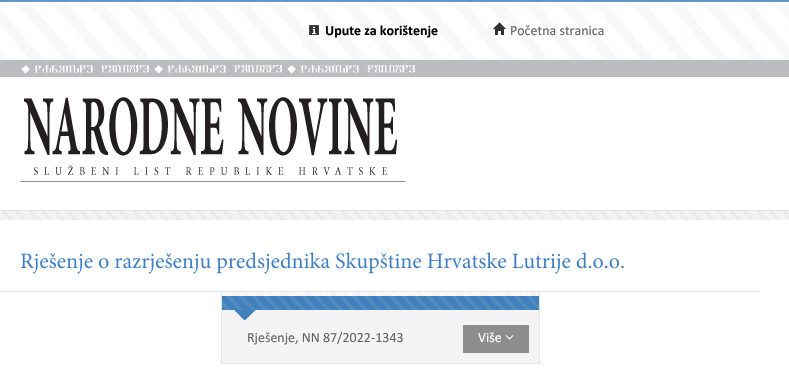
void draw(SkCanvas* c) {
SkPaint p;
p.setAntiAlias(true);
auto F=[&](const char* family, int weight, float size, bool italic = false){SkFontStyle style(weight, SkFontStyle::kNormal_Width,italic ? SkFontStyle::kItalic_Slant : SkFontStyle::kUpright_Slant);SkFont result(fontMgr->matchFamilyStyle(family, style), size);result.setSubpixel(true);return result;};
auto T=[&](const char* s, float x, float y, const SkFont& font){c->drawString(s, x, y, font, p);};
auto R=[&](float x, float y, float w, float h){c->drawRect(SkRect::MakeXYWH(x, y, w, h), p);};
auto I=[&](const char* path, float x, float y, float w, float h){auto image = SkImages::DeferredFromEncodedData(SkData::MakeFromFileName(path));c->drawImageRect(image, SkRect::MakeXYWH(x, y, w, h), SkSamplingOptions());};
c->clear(0xffffffff);
I("1.png",0,0,789,60);
I("2.png",307,25,12,10);
auto f1 = F("Calibri",700,14);
p.setColor(0xff000000);
T("Upute za korištenje",325,35,f1);
I("3.png",493,22,14,13);
auto f2 = F("Calibri",400,14);
p.setColor(0xff666666);
T("Početna stranica",510,35,f2);
p.setColor(0xffbcbdc0);
R(0,60,789,17);
I("4.png",21,65,128,9);
I("4.png",154,65,128,9);
I("4.png",287,65,128,9);
I("5.png",20,97,386,85);
I("6.png",0,210,789,10);
I("7.png",20,252,604,22);
p.setColor(0xffe4e4e6);
R(0,291,760,1);
p.setColor(0xfff4f4f6);
R(222,310,317,53);
p.setStroke(true);
p.setStrokeWidth(1);
p.setColor(0xffe4e4e6);
c->drawRect(SkRect::MakeXYWH(221.5,291.5,318,72),p);
I("8.png",222,292,317,18);
I("9.png",234,310,22,11);
p.setStroke(false);
p.setColor(0xff666666);
T("Rješenje, NN 87/2022-1343",247,342,f2);
p.setColor(0xff8d8d90);
R(463,325,66,28);
p.setColor(0xffffffff);
T("Više",478,342,f2);
I("10.png",505,335,9,5);
}
